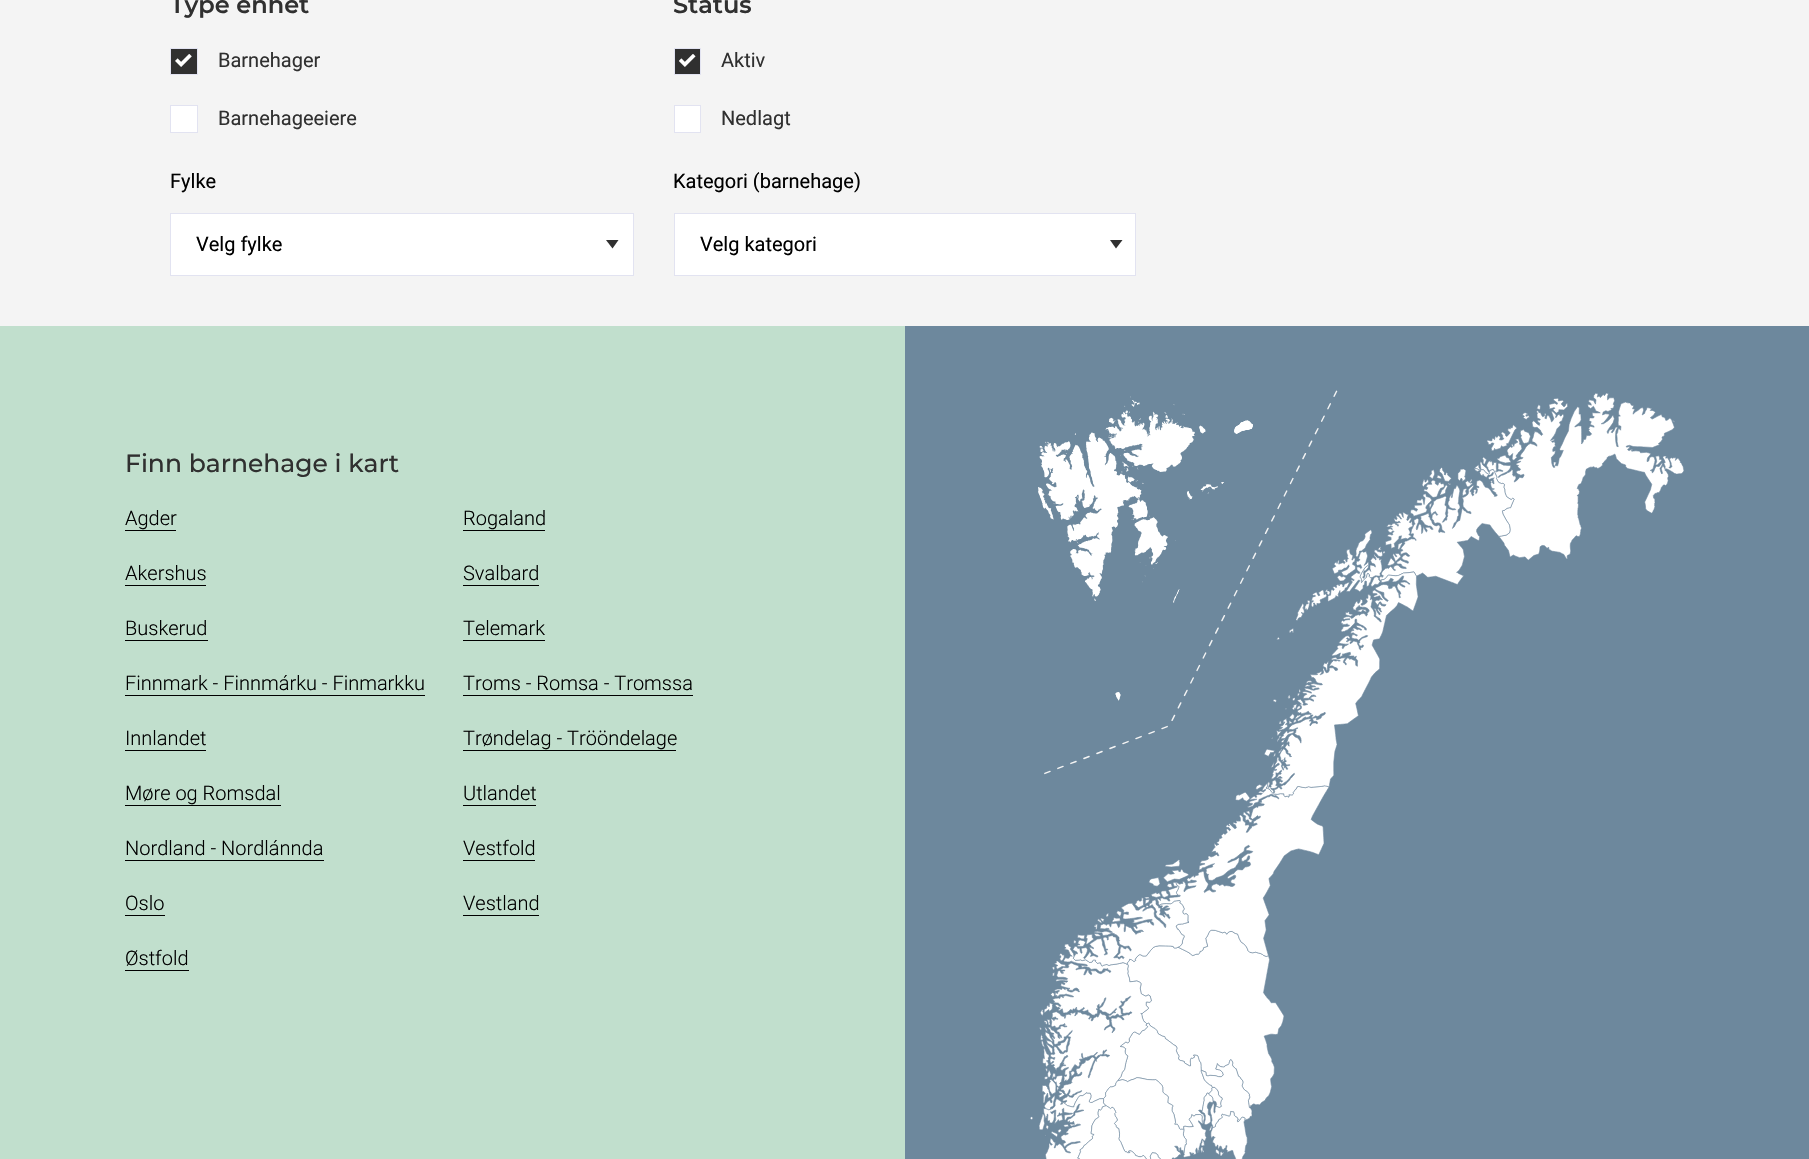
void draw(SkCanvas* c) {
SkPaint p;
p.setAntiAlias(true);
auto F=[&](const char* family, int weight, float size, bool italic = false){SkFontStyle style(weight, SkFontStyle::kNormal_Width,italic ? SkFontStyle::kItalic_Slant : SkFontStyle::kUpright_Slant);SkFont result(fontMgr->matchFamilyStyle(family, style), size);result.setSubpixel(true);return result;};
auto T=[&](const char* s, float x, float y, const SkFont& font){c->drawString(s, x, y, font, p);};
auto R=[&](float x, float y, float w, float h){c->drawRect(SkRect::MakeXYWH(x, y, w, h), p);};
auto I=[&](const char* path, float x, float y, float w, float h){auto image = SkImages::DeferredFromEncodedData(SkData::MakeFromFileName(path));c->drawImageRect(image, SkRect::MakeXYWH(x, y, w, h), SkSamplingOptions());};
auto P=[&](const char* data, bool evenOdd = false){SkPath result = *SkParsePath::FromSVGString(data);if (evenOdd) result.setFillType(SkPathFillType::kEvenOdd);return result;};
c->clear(0xfff4f4f4);
auto f1 = F("Montserrat",600,24);
p.setColor(0xff303030);
T("Type enhet",170,13,f1);
R(171,49,26,25);
I("1.png",175,54,17,13);
p.setStroke(true);
p.setStrokeWidth(1);
p.setColor(0xffe2e3f1);
c->drawRect(SkRect::MakeXYWH(170.5,48.5,27,26),p);
auto f2 = F("Roboto",400,20);
p.setStroke(false);
p.setColor(0xff303030);
T("Barnehager",218,67,f2);
p.setColor(0xffffffff);
c->drawRect(SkRect::MakeXYWH(170.5,105.5,27,27),p);
p.setStroke(true);
p.setColor(0xffe2e3f1);
c->drawRect(SkRect::MakeXYWH(170.5,105.5,27,27),p);
p.setStroke(false);
p.setColor(0xff303030);
T("Barnehageeiere",218,125,f2);
T("Status",673,13,f1);
R(675,49,25,25);
I("2.png",679,54,17,13);
p.setStroke(true);
p.setColor(0xffe2e3f1);
c->drawRect(SkRect::MakeXYWH(674.5,48.5,26,26),p);
p.setStroke(false);
p.setColor(0xff303030);
T("Aktiv",721,67,f2);
p.setColor(0xffffffff);
c->drawRect(SkRect::MakeXYWH(674.5,105.5,26,27),p);
p.setStroke(true);
p.setColor(0xffe2e3f1);
c->drawRect(SkRect::MakeXYWH(674.5,105.5,26,27),p);
p.setStroke(false);
p.setColor(0xff303030);
T("Nedlagt",721,125,f2);
p.setColor(0xff000000);
T("Fylke",170,188,f2);
p.setColor(0xffffffff);
R(171,214,462,61);
p.setColor(0xff303030);
c->drawPath(P("M612.5 248.5l-6.5-8.5h12.5l-6 8.5",true),p);
p.setStroke(true);
p.setColor(0xffe2e3f1);
c->drawRect(SkRect::MakeXYWH(170.5,213.5,463,62),p);
p.setStroke(false);
p.setColor(0xff000000);
T("Velg fylke",196,251,f2);
T("Kategori (barnehage)",673,188,f2);
p.setColor(0xffffffff);
R(675,214,460,61);
p.setColor(0xff303030);
c->drawPath(P("M1116 248.5l-6-8.5h12.5l-6.5 8.5",true),p);
p.setStroke(true);
p.setColor(0xffe2e3f1);
c->drawRect(SkRect::MakeXYWH(674.5,213.5,461,62),p);
p.setStroke(false);
p.setColor(0xff000000);
T("Velg kategori",700,251,f2);
p.setColor(0xffc1dfcd);
R(0,326,905,833);
auto f3 = F("Montserrat",500,25);
p.setColor(0xff303030);
T("Finn barnehage i kart",125,472,f3);
auto f4 = F("Roboto",300,20);
p.setColor(0xff000000);
T("Agder",125,525,f4);
R(125,530,51,1);
T("Rogaland",463,525,f4);
R(463,530,82,1);
T("Akershus",125,580,f4);
R(125,585,81,1);
T("Svalbard",463,580,f4);
R(463,585,76,1);
T("Buskerud",125,635,f4);
R(125,640,83,1);
T("Telemark",463,635,f4);
R(463,640,82,1);
T("Finnmark - Finnmárku - Finmarkku",125,690,f4);
R(125,695,300,1);
T("Troms - Romsa - Tromssa",463,690,f4);
R(463,695,230,1);
T("Innlandet",125,745,f4);
R(125,750,81,1);
T("Trøndelag - Trööndelage",463,745,f4);
R(463,750,213,1);
T("Møre og Romsdal",125,800,f4);
R(125,805,156,1);
T("Utlandet",463,800,f4);
R(463,805,73,1);
T("Nordland - Nordlánnda",125,855,f4);
R(125,860,199,1);
T("Vestfold",463,855,f4);
R(463,860,72,1);
T("Oslo",125,910,f4);
R(125,915,40,1);
T("Vestland",463,910,f4);
R(463,915,76,1);
T("Østfold",125,965,f4);
R(125,970,64,1);
p.setColor(0xff6d889d);
R(905,326,904,833);
I("3.png",1030,390,654,769);
}
